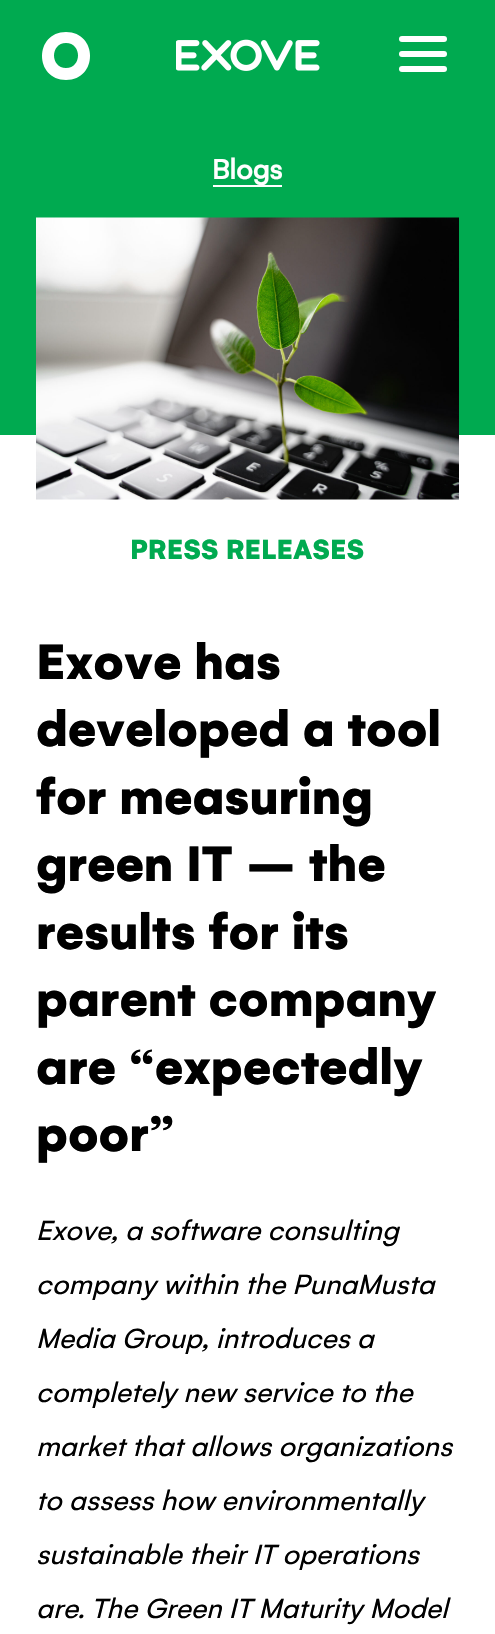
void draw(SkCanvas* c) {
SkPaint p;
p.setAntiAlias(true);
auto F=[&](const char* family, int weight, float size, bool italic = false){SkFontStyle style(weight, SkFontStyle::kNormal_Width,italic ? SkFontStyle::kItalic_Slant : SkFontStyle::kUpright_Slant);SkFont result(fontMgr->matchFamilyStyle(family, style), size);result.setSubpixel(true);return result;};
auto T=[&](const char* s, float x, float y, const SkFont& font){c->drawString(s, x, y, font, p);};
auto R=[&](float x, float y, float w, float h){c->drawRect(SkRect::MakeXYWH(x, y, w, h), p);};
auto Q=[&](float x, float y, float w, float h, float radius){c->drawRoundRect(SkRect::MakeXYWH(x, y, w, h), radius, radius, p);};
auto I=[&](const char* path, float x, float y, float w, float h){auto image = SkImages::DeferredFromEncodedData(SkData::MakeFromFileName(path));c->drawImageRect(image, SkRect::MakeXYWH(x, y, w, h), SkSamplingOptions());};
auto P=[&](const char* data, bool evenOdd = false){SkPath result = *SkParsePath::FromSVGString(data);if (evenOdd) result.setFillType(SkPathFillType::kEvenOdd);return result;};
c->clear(0xffffffff);
p.setColor(0xff00aa50);
R(0,0,495,435);
p.setColor(0xffffffff);
c->drawPath(P("M66 43c-16 0-16 25 0 25c16 0 16-25 0-25m0 37c-32 0-32-48 0-48c32 0 32 48 0 48",true),p);
I("1.png",176,39,144,32);
Q(399,36,48,6,3);
Q(399,51,48,6,3);
Q(399,66,48,6,3);
R(213,185,69,2);
auto f1 = F("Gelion",700,30);
T("Blogs",212,179,f1);
I("2.png",36,217,423,283);
auto f2 = F("Gelion",900,30);
p.setColor(0xff00aa50);
T("PRESS RELEASES",130,559,f2);
auto f3 = F("Gelion",900,54);
p.setColor(0xff000000);
T("Exove has",36,679,f3);
T("developed a tool",36,746,f3);
T("for measuring",36,814,f3);
T("green IT – the",36,881,f3);
T("results for its",36,949,f3);
T("parent company",36,1016,f3);
T("are “expectedly",36,1084,f3);
T("poor”",36,1151,f3);
auto f4 = F("Gelion",400,30,true);
T("Exove, a software consulting",36,1240,f4);
T("company within the PunaMusta",36,1294,f4);
T("Media Group, introduces a",36,1348,f4);
T("completely new service to the",36,1402,f4);
T("market that allows organizations",36,1456,f4);
T("to assess how environmentally",36,1510,f4);
T("sustainable their IT operations",36,1564,f4);
T("are. The Green IT Maturity Model",36,1618,f4);
}
